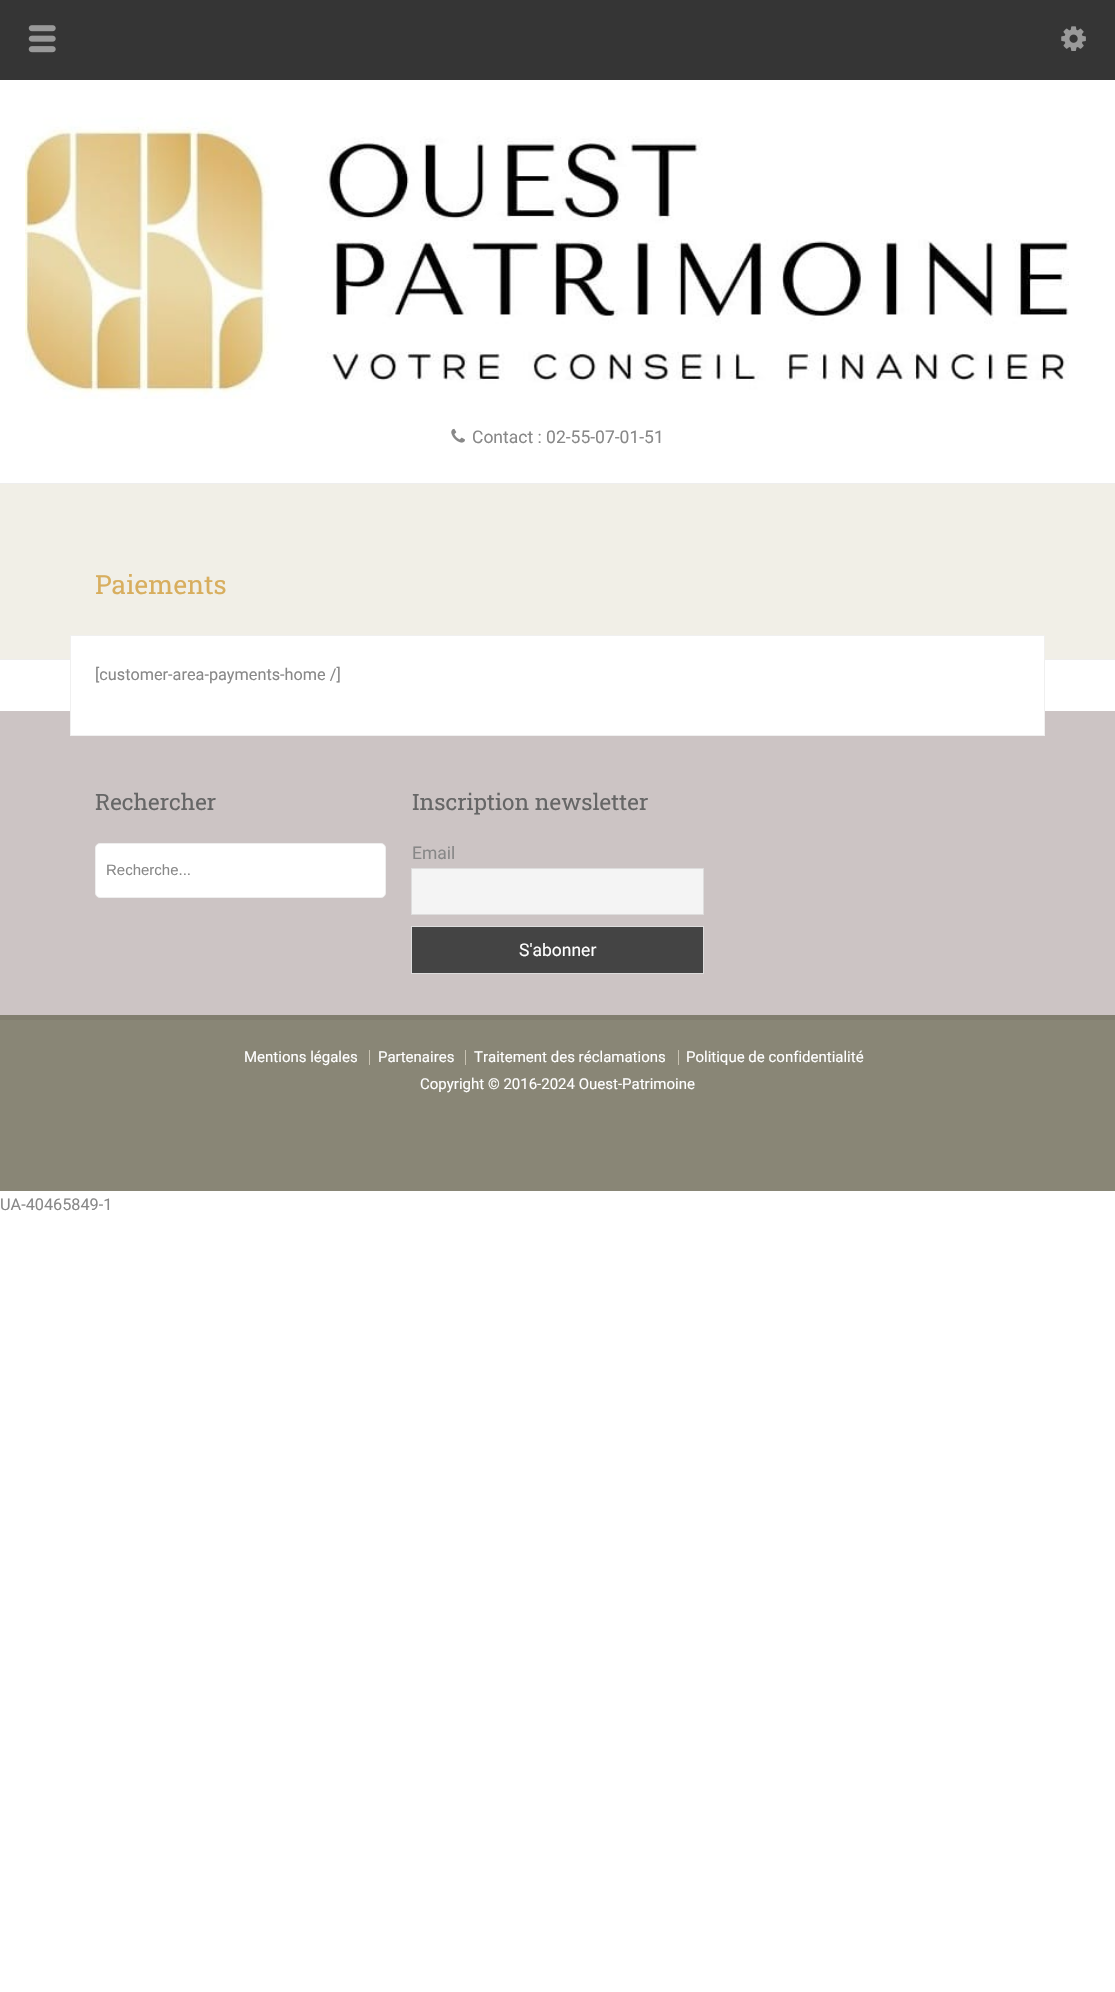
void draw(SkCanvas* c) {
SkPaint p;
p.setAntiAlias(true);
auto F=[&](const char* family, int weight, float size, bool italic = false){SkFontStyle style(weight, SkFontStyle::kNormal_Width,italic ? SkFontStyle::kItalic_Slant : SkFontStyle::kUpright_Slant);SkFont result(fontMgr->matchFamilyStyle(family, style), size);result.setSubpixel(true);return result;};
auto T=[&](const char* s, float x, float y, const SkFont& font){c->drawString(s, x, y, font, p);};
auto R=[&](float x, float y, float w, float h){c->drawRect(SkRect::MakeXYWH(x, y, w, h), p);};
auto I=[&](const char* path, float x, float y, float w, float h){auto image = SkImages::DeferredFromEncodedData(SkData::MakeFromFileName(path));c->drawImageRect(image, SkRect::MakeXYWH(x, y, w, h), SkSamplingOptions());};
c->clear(0xffffffff);
p.setColor(0xff353535);
R(0,0,1115,80);
I("1.png",28,25,28,28);
I("2.png",1061,26,25,25);
I("3.png",25,117,1044,282);
I("4.png",451,428,14,15);
auto f1 = F("Roboto",400,17.5);
p.setColor(0xff888888);
T("Contact : 02-55-07-01-51",472,443,f1);
p.setColor(0xfff1efe7);
R(0,484,1115,175);
p.setColor(0xffeeeeee);
R(0,483,1115,1);
R(0,659,1115,1);
auto f2 = F("Roboto Slab",400,26.25);
p.setColor(0xffd8ae5e);
T("Paiements",95,594,f2);
p.setColor(0xffccc4c4);
R(0,711,1115,304);
p.setColor(0xffffffff);
c->drawRect(SkRect::MakeXYWH(70.5,635.5,974,100),p);
p.setStroke(true);
p.setStrokeWidth(1);
p.setColor(0xfff0f0f0);
c->drawRect(SkRect::MakeXYWH(70.5,635.5,974,100),p);
auto f3 = F("Roboto",400,16.25);
p.setStroke(false);
p.setColor(0xff888888);
T("[customer-area-payments-home /]",95,680,f3);
auto f4 = F("Roboto Slab",400,22.5);
p.setColor(0xff666666);
T("Rechercher",95,810,f4);
p.setColor(0xffffffff);
c->drawRoundRect(SkRect::MakeXYWH(95.5,843.5,290,54),4.5,4.5,p);
p.setStroke(true);
p.setColor(0xffeeeeee);
c->drawRoundRect(SkRect::MakeXYWH(95.5,843.5,290,54),4.5,4.5,p);
auto f5 = F("Liberation Sans",400,15);
p.setStroke(false);
p.setColor(0xff888888);
T("Recherche...",106,875,f5);
p.setColor(0xff666666);
T("Inscription newsletter",412,810,f4);
p.setColor(0xff888888);
T("Email",412,859,f1);
p.setColor(0xfff4f4f4);
c->drawRect(SkRect::MakeXYWH(411.5,868.5,292,46),p);
p.setStroke(true);
p.setColor(0xffdddddd);
c->drawRect(SkRect::MakeXYWH(411.5,868.5,292,46),p);
p.setStroke(false);
p.setColor(0xff444444);
c->drawRect(SkRect::MakeXYWH(411.5,926.5,292,47),p);
p.setStroke(true);
p.setColor(0xffdddddd);
c->drawRect(SkRect::MakeXYWH(411.5,926.5,292,47),p);
p.setStroke(false);
p.setColor(0xffffffff);
T("S'abonner",519,956,f1);
p.setColor(0xff898676);
R(0,1020,1115,171);
p.setColor(0xff817e6f);
R(0,1015,1115,5);
auto f6 = F("Roboto",400,15);
p.setColor(0xffffffff);
T("Mentions légales",244,1062,f6);
p.setColor(0xffc9c3b3);
R(369,1050,1,15);
p.setColor(0xffffffff);
T("Partenaires",378,1062,f6);
p.setColor(0xffc9c3b3);
R(465,1050,1,15);
p.setColor(0xffffffff);
T("Traitement des réclamations",474,1062,f6);
p.setColor(0xffc9c3b3);
R(678,1050,1,15);
p.setColor(0xffffffff);
T("Politique de confidentialité",686,1062,f6);
T("Copyright © 2016-2024 Ouest-Patrimoine",420,1089,f6);
p.setColor(0xff888888);
T("UA-40465849-1",0,1210,f3);
}
